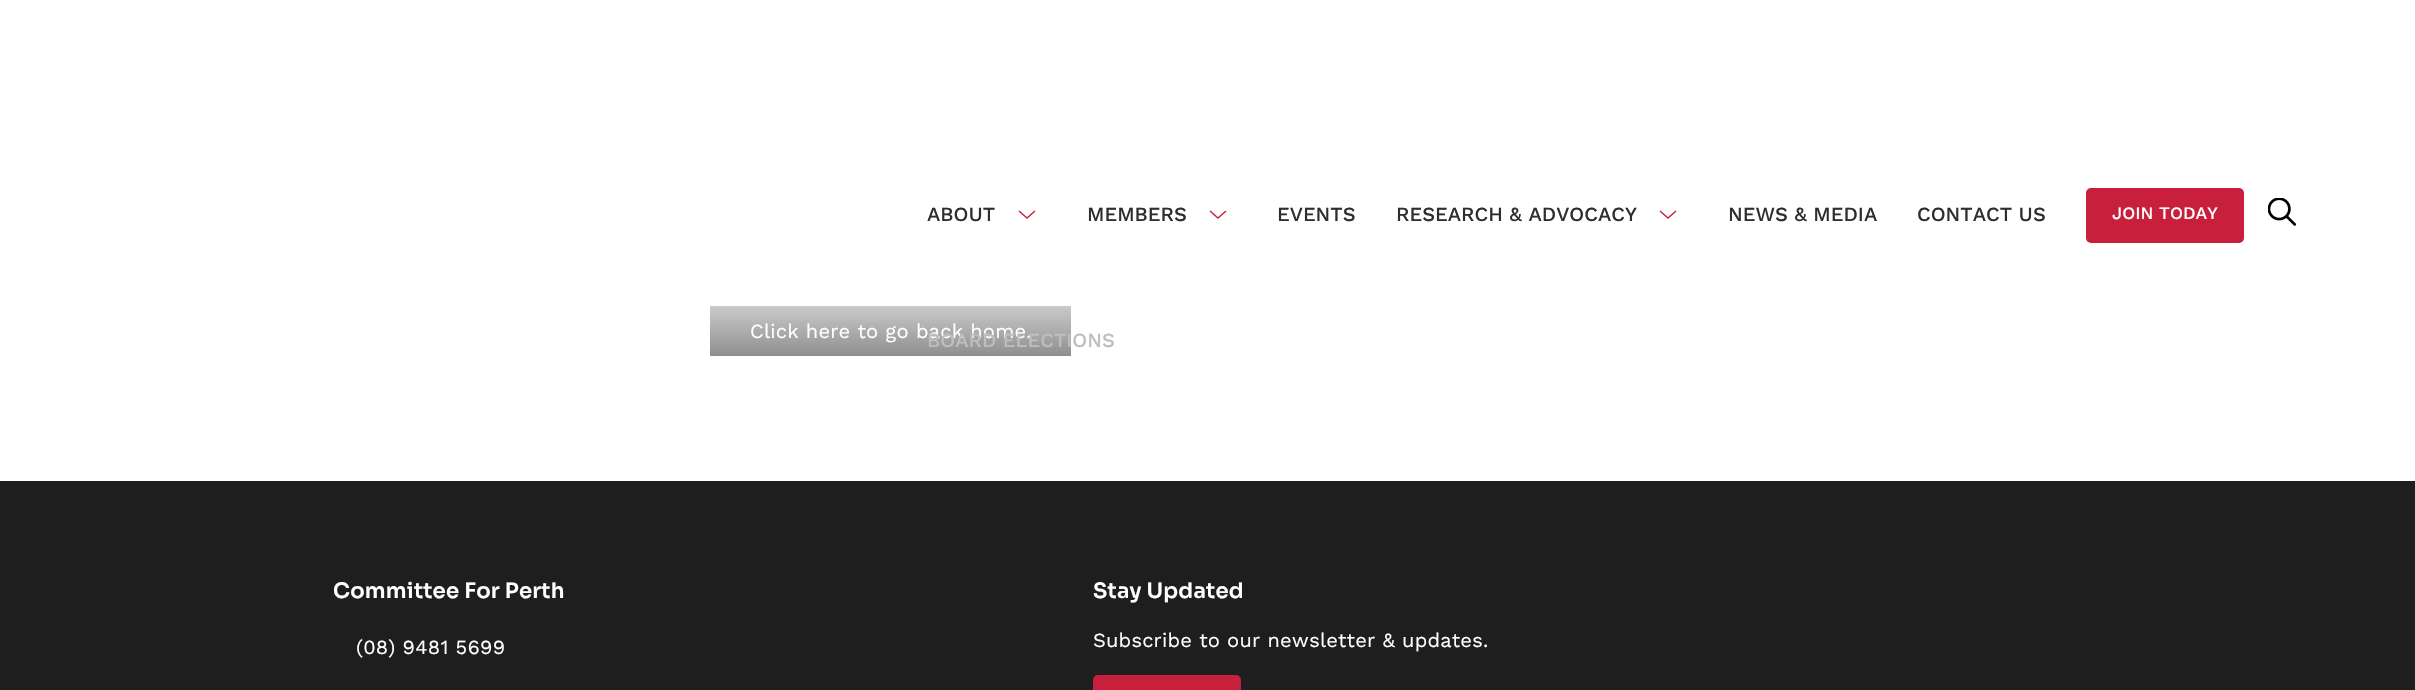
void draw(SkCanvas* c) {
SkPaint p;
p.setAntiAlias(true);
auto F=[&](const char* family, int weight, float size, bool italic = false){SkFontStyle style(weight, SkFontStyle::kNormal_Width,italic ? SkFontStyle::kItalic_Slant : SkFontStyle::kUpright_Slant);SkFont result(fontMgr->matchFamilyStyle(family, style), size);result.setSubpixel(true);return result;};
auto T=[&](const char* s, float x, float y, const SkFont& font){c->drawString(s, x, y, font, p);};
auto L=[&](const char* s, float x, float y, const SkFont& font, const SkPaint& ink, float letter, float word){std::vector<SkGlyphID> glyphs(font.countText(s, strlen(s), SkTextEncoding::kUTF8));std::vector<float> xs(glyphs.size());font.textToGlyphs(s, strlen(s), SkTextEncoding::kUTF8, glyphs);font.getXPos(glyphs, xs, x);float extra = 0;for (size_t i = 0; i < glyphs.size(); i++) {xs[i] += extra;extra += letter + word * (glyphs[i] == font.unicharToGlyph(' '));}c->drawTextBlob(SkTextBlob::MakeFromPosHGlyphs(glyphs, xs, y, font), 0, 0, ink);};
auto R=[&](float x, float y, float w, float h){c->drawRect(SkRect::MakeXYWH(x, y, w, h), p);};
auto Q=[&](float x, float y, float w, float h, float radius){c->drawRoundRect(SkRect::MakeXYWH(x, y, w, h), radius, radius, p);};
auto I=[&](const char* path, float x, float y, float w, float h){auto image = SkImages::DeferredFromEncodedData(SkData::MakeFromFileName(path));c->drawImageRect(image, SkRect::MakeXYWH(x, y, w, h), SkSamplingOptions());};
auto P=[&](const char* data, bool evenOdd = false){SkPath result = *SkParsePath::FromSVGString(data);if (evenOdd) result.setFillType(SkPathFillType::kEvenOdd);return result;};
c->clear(0xffffffff);
p.setColor(0xff1e1e1e);
R(710,306,361,50);
auto f1 = F("Work Sans",400,20);
p.setColor(0xffffffff);
L("Click here to go back home.",750,338,f1,p,.2,0);
{
const SkColor colors[] = {0xffffffff,0x00ffffff};
const float stops[] = {.42,1};
const SkPoint ends[] = {{1208,125}, {1208,450}};
p.setShader(SkGradientShader::MakeLinear(ends, colors, stops, 2, SkTileMode::kClamp));
p.setAlpha(255);
}
R(710,306,361,50);
auto f2 = F("Work Sans",500,20);
p.setShader(nullptr);
p.setColor(0xff2e2e2e);
T("ABOUT",927,221,f2);
p.setStroke(true);
p.setStrokeWidth(1.4);
p.setColor(0xffc71f3c);
c->drawPath(P("M1019 211l8 7l8-7"),p);
p.setStroke(false);
p.setColor(0xffbebebe);
T("BOARD ELECTIONS",927,347,f2);
p.setColor(0xff2e2e2e);
T("MEMBERS",1087,221,f2);
p.setStroke(true);
p.setColor(0xffc71f3c);
c->drawPath(P("M1210 211l8 7l8-7"),p);
p.setStroke(false);
p.setColor(0xff2e2e2e);
T("EVENTS",1277,221,f2);
T("RESEARCH & ADVOCACY",1396,221,f2);
p.setStroke(true);
p.setColor(0xffc71f3c);
c->drawPath(P("M1660 211l8 7l8-7"),p);
p.setStroke(false);
p.setColor(0xff2e2e2e);
T("NEWS & MEDIA",1728,221,f2);
T("CONTACT US",1917,221,f2);
p.setColor(0xffc71f3c);
Q(2086,188,158,55,5);
auto f3 = F("Work Sans",500,17.5);
p.setColor(0xffffffff);
T("JOIN TODAY",2112,219,f3);
I("1.png",2268,198,28,28);
p.setColor(0xff1e1e1e);
R(0,481,2415,209);
auto f4 = F("Sora",600,21.25);
p.setColor(0xffffffff);
L("Committee For Perth",333,598,f4,p,.2,0);
L("(08) 9481 5699",356,654,f1,p,.2,0);
L("Stay Updated",1093,598,f4,p,.2,0);
L("Subscribe to our newsletter & updates.",1093,647,f1,p,.2,0);
p.setColor(0xffc71f3c);
Q(1093,675,148,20,5);
}
